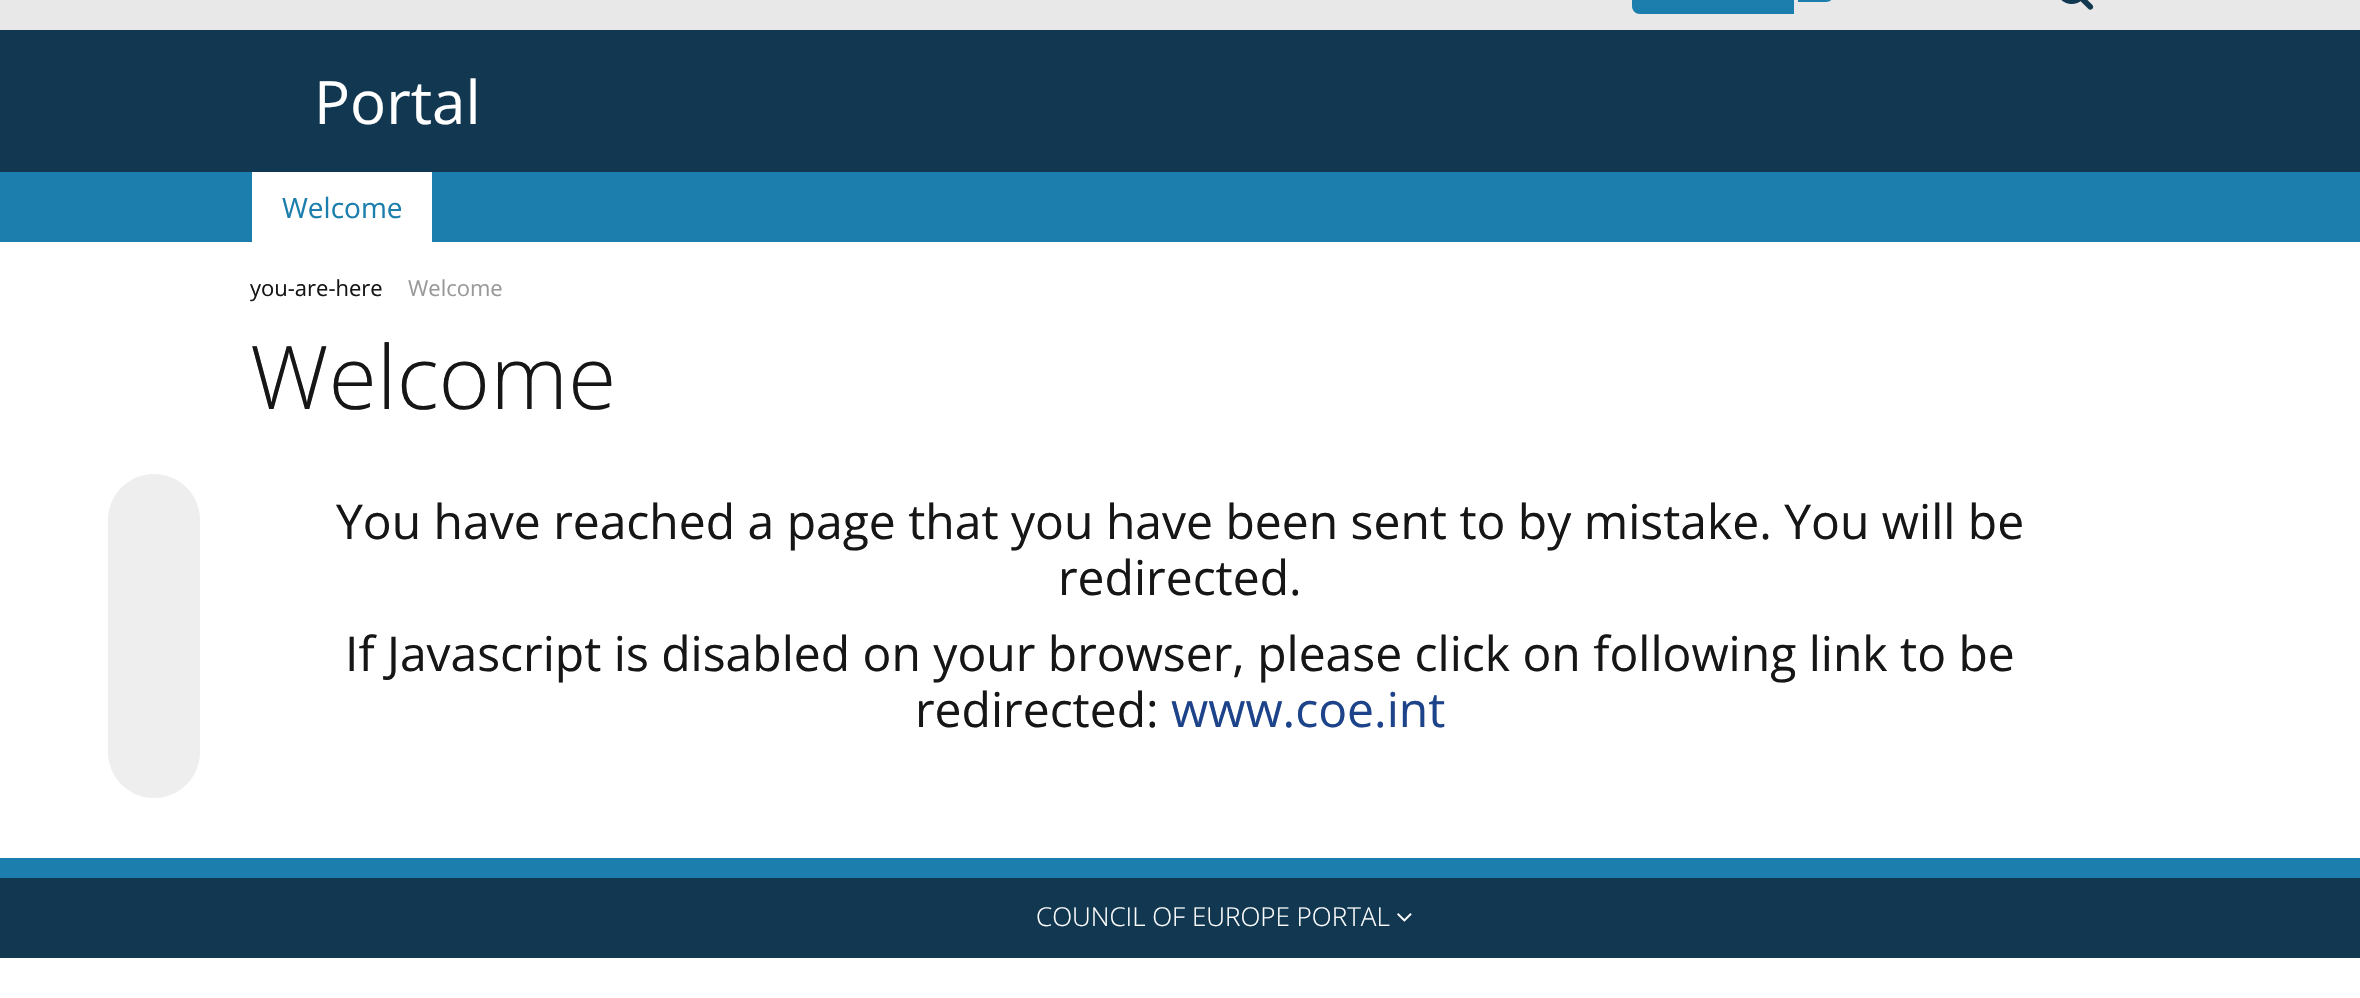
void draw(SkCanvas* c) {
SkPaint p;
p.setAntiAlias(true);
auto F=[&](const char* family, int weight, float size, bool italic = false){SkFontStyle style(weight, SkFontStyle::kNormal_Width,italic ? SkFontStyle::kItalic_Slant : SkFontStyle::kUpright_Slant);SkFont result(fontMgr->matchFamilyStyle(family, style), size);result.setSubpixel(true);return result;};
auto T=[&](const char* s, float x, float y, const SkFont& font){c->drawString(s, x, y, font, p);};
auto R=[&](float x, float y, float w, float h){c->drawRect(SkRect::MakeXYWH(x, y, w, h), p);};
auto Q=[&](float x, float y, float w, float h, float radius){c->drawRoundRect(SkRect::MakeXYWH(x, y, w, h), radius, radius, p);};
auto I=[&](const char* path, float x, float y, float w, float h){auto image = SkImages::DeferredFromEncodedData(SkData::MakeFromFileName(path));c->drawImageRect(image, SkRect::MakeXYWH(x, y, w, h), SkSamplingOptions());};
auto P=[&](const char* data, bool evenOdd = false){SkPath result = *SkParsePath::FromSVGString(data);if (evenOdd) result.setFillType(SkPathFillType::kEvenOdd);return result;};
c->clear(0xffffffff);
p.setColor(0xffe8e8e8);
R(0,0,2360,30);
p.setColor(0xff1b7eac);
c->drawPath(P("M1640-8h154v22h-154c-4.5 0-8-3.5-8-8v-6c0-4.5 3.5-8 8-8z"),p);
c->drawPath(P("M1798-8h28c4.5 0 8 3.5 8 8v-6c0 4.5-3.5 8-8 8h-28z"),p);
I("1.png",2061,0,33,10);
p.setColor(0xff123751);
R(0,30,2360,142);
auto f1 = F("Open Sans",400,60);
p.setColor(0xffffffff);
T("Portal",314,124,f1);
p.setColor(0xff1b7eac);
R(0,172,2360,70);
p.setColor(0xffffffff);
R(252,172,180,70);
auto f2 = F("Open Sans",400,28);
p.setColor(0xff1b7eac);
T("Welcome",282,218,f2);
auto f3 = F("Open Sans",400,22);
p.setColor(0xff161616);
T("you-are-here",250,296,f3);
p.setColor(0xff999999);
T("Welcome",408,296,f3);
auto f4 = F("Open Sans",300,88);
p.setColor(0xff161616);
T("Welcome",250,409,f4);
p.setColor(0xffeeeeee);
Q(108,474,92,324,46);
auto f5 = F("Open Sans",400,48);
p.setColor(0xff161616);
T("You have reached a page that you have been sent to by mistake. You will be",336,539,f5);
T("redirected.",1058,595,f5);
T("If Javascript is disabled on your browser, please click on following link to be",345,671,f5);
T("redirected:",915,727,f5);
p.setColor(0xff1d448a);
T("www.coe.int",1171,727,f5);
p.setColor(0xff1b7eac);
R(0,858,2360,20);
p.setColor(0xff123751);
R(0,878,2360,80);
auto f6 = F("Open Sans",300,26);
p.setColor(0xffffffff);
T("COUNCIL OF EUROPE PORTAL",1036,926,f6);
I("2.png",1397,913,15,9);
}
